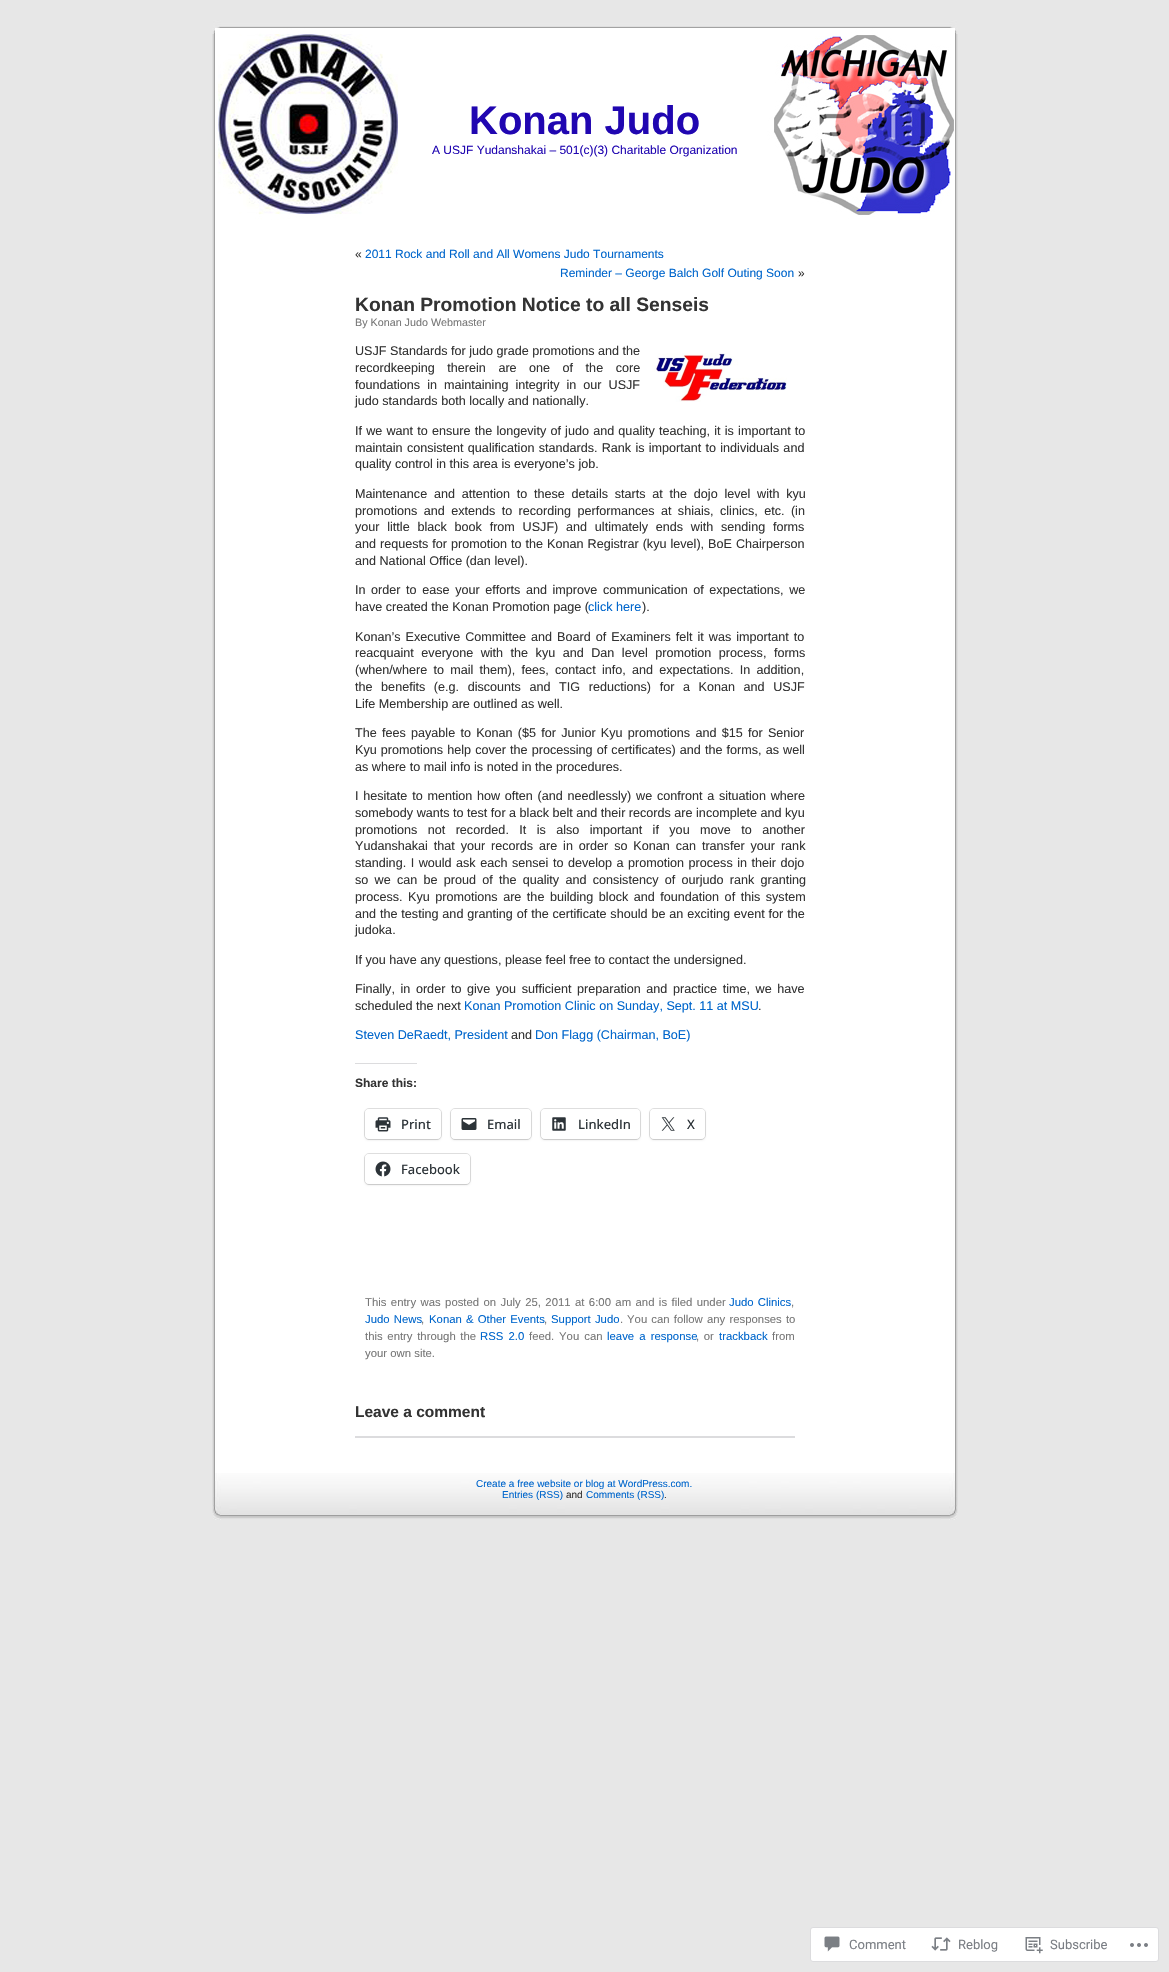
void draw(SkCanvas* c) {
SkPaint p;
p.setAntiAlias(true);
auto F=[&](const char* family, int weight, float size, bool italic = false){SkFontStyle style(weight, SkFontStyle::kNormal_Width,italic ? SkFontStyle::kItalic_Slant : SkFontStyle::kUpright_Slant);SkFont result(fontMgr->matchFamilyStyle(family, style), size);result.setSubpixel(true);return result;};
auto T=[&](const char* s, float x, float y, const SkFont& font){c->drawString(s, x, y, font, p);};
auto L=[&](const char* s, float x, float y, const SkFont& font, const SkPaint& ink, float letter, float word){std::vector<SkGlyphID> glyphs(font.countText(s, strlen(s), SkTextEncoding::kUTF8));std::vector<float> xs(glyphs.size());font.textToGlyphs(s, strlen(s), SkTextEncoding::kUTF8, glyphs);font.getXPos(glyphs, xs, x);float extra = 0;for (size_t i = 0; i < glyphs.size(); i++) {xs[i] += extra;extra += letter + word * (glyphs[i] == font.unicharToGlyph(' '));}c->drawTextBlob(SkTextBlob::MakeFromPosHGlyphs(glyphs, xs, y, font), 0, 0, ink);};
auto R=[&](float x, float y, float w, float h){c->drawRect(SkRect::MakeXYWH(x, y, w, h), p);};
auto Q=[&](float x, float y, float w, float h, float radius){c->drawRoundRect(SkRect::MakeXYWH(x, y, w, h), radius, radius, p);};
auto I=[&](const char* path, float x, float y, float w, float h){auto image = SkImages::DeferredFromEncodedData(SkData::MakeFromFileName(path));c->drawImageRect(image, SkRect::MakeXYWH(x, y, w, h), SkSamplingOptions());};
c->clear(0xffe7e7e7);
I("1.png",212,220,746,1253);
I("2.png",212,20,746,200);
I("3.png",215,28,740,192);
auto f1 = F("Liberation Sans",700,40);
p.setColor(0xff2006b1);
T("Konan Judo",469,134,f1);
auto f2 = F("Liberation Sans",400,12);
T("A USJF Yudanshakai – 501(c)(3) Charitable Organization",432,154,f2);
p.setColor(0xff333333);
T("«",355,258,f2);
p.setColor(0xff0066cc);
T("2011 Rock and Roll and All Womens Judo Tournaments",365,258,f2);
T("Reminder – George Balch Golf Outing Soon",560,277,f2);
p.setColor(0xff333333);
T("»",798,277,f2);
auto f3 = F("Liberation Sans",700,19.25);
T("Konan Promotion Notice to all Senseis",355,311,f3);
auto f4 = F("Liberation Sans",400,10.75);
p.setColor(0xff777777);
T("By Konan Judo Webmaster",355,326,f4);
auto f5 = F("Liberation Sans",400,12.6);
p.setColor(0xff333333);
T("USJF Standards for judo grade promotions and the",355,355,f5);
L("recordkeeping therein are one of the core",355,372,f5,p,0,9);
I("4.png",652,353,135,49);
L("foundations in maintaining integrity in our USJF",355,389,f5,p,0,3.5);
T("judo standards both locally and nationally.",355,405,f5);
L("If we want to ensure the longevity of judo and quality teaching, it is important to",355,435,f5,p,0,.7);
L("maintain consistent qualification standards. Rank is important to individuals and",355,452,f5,p,0,.75);
T("quality control in this area is everyone’s job.",355,468,f5);
L("Maintenance and attention to these details starts at the dojo level with kyu",355,498,f5,p,0,3.25);
L("promotions and extends to recording performances at shiais, clinics, etc. (in",355,515,f5,p,0,2.9);
L("your little black book from USJF) and ultimately ends with sending forms",355,531,f5,p,0,4.25);
L("and requests for promotion to the Konan Registrar (kyu level), BoE Chairperson",355,548,f5,p,0,.5);
T("and National Office (dan level).",355,565,f5);
L("In order to ease your efforts and improve communication of expectations, we",355,594,f5,p,0,2.1);
T("have created the Konan Promotion page (",355,611,f5);
p.setColor(0xff0066cc);
T("click here",588,611,f5);
p.setColor(0xff333333);
T(").",642,611,f5);
L("Konan’s Executive Committee and Board of Examiners felt it was important to",355,641,f5,p,0,1.5);
L("reacquaint everyone with the kyu and Dan level promotion process, forms",355,657,f5,p,0,4);
L("(when/where to mail them), fees, contact info, and expectations. In addition,",355,674,f5,p,0,2.75);
L("the benefits (e.g. discounts and TIG reductions) for a Konan and USJF",355,691,f5,p,0,5.1);
T("Life Membership are outlined as well.",355,708,f5);
L("The fees payable to Konan ($5 for Junior Kyu promotions and $15 for Senior",355,737,f5,p,0,1.75);
L("Kyu promotions help cover the processing of certificates) and the forms, as well",355,754,f5,p,0,.6);
T("as where to mail info is noted in the procedures.",355,771,f5);
L("I hesitate to mention how often (and needlessly) we confront a situation where",355,800,f5,p,0,1.25);
T("somebody wants to test for a black belt and their records are incomplete and kyu",355,817,f5);
L("promotions not recorded. It is also important if you move to another",355,834,f5,p,0,6.9);
L("Yudanshakai that your records are in order so Konan can transfer your rank",355,850,f5,p,0,2.4);
L("standing. I would ask each sensei to develop a promotion process in their dojo",355,867,f5,p,0,1);
L("so we can be proud of the quality and consistency of ourjudo rank granting",355,884,f5,p,0,2.75);
L("process. Kyu promotions are the building block and foundation of this system",355,901,f5,p,0,2);
L("and the testing and granting of the certificate should be an exciting event for the",355,918,f5,p,0,.4);
T("judoka.",355,934,f5);
T("If you have any questions, please feel free to contact the undersigned.",355,964,f5);
L("Finally, in order to give you sufficient preparation and practice time, we have",355,993,f5,p,0,2.1);
T("scheduled the next",355,1010,f5);
p.setColor(0xff0066cc);
T("Konan Promotion Clinic on Sunday, Sept. 11 at MSU",464,1010,f5);
p.setColor(0xff333333);
T(".",758,1010,f5);
p.setColor(0xff0066cc);
T("Steven DeRaedt, President",355,1039,f5);
p.setColor(0xff333333);
T("and",511,1039,f5);
p.setColor(0xff0066cc);
T("Don Flagg (Chairman, BoE)",535,1039,f5);
p.setColor(0xffdcdcde);
R(355,1063,62,1);
auto f6 = F("Liberation Sans",700,12);
p.setColor(0xff333333);
T("Share this:",355,1087,f6);
p.setStroke(true);
p.setStrokeWidth(1);
p.setColor(0xffe0e0e0);
c->drawRoundRect(SkRect::MakeXYWH(364.5,1108.5,77,31),4.5,4.5,p);
p.setStroke(false);
p.setColor(0x1f000000);
p.setMaskFilter(SkMaskFilter::MakeBlur(kNormal_SkBlurStyle, 1));
c->drawRoundRect(SkRect::MakeXYWH(365,1110,76,30),4,4,p);
p.setMaskFilter(nullptr);
p.setColor(0xffffffff);
Q(365,1109,76,30,4);
I("5.png",375,1117,16,15);
auto f7 = F("Open Sans",500,13);
p.setColor(0xff2c3338);
T("Print",401,1129,f7);
p.setStroke(true);
p.setColor(0xffe0e0e0);
c->drawRoundRect(SkRect::MakeXYWH(450.5,1108.5,81,31),4.5,4.5,p);
p.setStroke(false);
p.setColor(0x1f000000);
p.setMaskFilter(SkMaskFilter::MakeBlur(kNormal_SkBlurStyle, 1));
c->drawRoundRect(SkRect::MakeXYWH(451,1110,80,30),4,4,p);
p.setMaskFilter(nullptr);
p.setColor(0xffffffff);
Q(451,1109,80,30,4);
I("6.png",461,1118,16,12);
p.setColor(0xff2c3338);
T("Email",487,1129,f7);
p.setStroke(true);
p.setColor(0xffe0e0e0);
c->drawRoundRect(SkRect::MakeXYWH(540.5,1108.5,100,31),4.5,4.5,p);
p.setStroke(false);
p.setColor(0x1f000000);
p.setMaskFilter(SkMaskFilter::MakeBlur(kNormal_SkBlurStyle, 1));
c->drawRoundRect(SkRect::MakeXYWH(541,1110,99,30),4,4,p);
p.setMaskFilter(nullptr);
p.setColor(0xffffffff);
Q(541,1109,99,30,4);
I("7.png",552,1117,14,14);
p.setColor(0xff2c3338);
T("LinkedIn",578,1129,f7);
p.setStroke(true);
p.setColor(0xffe0e0e0);
c->drawRoundRect(SkRect::MakeXYWH(649.5,1108.5,56,31),4.5,4.5,p);
p.setStroke(false);
p.setColor(0x1f000000);
p.setMaskFilter(SkMaskFilter::MakeBlur(kNormal_SkBlurStyle, 1));
c->drawRoundRect(SkRect::MakeXYWH(650,1110,55,30),4,4,p);
p.setMaskFilter(nullptr);
p.setColor(0xffffffff);
Q(650,1109,55,30,4);
I("8.png",661,1117,14,14);
p.setColor(0xff2c3338);
T("X",687,1129,f7);
p.setStroke(true);
p.setColor(0xffe0e0e0);
c->drawRoundRect(SkRect::MakeXYWH(364.5,1153.5,106,31),4.5,4.5,p);
p.setStroke(false);
p.setColor(0x1f000000);
p.setMaskFilter(SkMaskFilter::MakeBlur(kNormal_SkBlurStyle, 1));
c->drawRoundRect(SkRect::MakeXYWH(365,1155,105,30),4,4,p);
p.setMaskFilter(nullptr);
p.setColor(0xffffffff);
Q(365,1154,105,30,4);
I("9.png",375,1161,16,16);
p.setColor(0xff2c3338);
T("Facebook",401,1174,f7);
auto f8 = F("Liberation Sans",400,11.35);
p.setColor(0xff777777);
L("This entry was posted on July 25, 2011 at 6:00 am and is filed under",365,1306,f8,p,0,1.25);
p.setColor(0xff0066cc);
L("Judo Clinics",729,1306,f8,p,0,1);
p.setColor(0xff777777);
T(",",791,1306,f8);
p.setColor(0xff0066cc);
L("Judo News",365,1323,f8,p,0,1);
p.setColor(0xff777777);
T(",",421,1323,f8);
p.setColor(0xff0066cc);
L("Konan & Other Events",429,1323,f8,p,0,1);
p.setColor(0xff777777);
T(",",544,1323,f8);
p.setColor(0xff0066cc);
L("Support Judo",551,1323,f8,p,0,1);
p.setColor(0xff777777);
T(".",620,1323,f8);
L("You can follow any responses to",627,1323,f8,p,0,1);
L("this entry through the",365,1340,f8,p,0,1.5);
p.setColor(0xff0066cc);
L("RSS 2.0",480,1340,f8,p,0,2);
p.setColor(0xff777777);
T("feed.",529,1340,f8);
L("You can",559,1340,f8,p,0,2);
p.setColor(0xff0066cc);
L("leave a response",607,1340,f8,p,0,2);
p.setColor(0xff777777);
L(", or",696,1340,f8,p,0,1.5);
p.setColor(0xff0066cc);
T("trackback",719,1340,f8);
p.setColor(0xff777777);
T("from",772,1340,f8);
T("your own site.",365,1357,f8);
auto f9 = F("Liberation Sans",700,15.5);
p.setColor(0xff333333);
T("Leave a comment",355,1417,f9);
p.setColor(0xffdcdcde);
R(355,1436,440,2);
I("10.png",212,1473,746,47);
auto f10 = F("Liberation Sans",400,10);
p.setColor(0xff0066cc);
T("Create a free website or blog at WordPress.com.",476,1487,f10);
T("Entries (RSS)",502,1498,f10);
p.setColor(0xff333333);
T("and",566,1498,f10);
p.setColor(0xff0066cc);
T("Comments (RSS)",586,1498,f10);
p.setColor(0xff333333);
T(".",664,1498,f10);
p.setColor(0xffffffff);
c->drawRoundRect(SkRect::MakeXYWH(810.5,1927.5,348,34),2.5,2.5,p);
p.setStroke(true);
p.setColor(0xffdcdcde);
c->drawRoundRect(SkRect::MakeXYWH(810.5,1927.5,348,34),2.5,2.5,p);
I("11.png",824,1936,16,16);
auto f11 = F("Roboto",400,13);
p.setStroke(false);
p.setColor(0xff7a7e84);
T("Comment",849,1949,f11);
I("12.png",931,1937,20,14);
T("Reblog",958,1949,f11);
I("13.png",1025,1937,18,17);
T("Subscribe",1050,1949,f11);
I("14.png",1130,1943,18,4);
}
